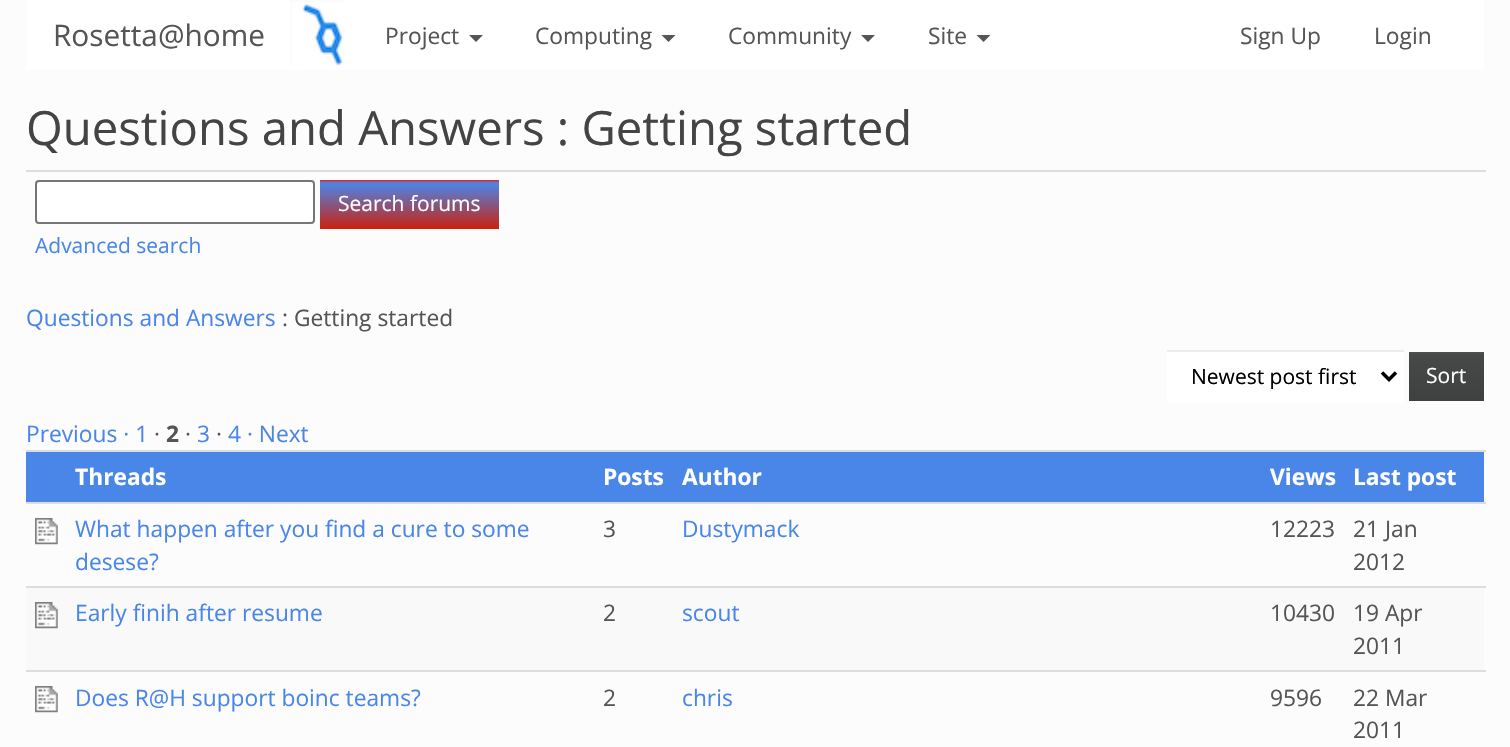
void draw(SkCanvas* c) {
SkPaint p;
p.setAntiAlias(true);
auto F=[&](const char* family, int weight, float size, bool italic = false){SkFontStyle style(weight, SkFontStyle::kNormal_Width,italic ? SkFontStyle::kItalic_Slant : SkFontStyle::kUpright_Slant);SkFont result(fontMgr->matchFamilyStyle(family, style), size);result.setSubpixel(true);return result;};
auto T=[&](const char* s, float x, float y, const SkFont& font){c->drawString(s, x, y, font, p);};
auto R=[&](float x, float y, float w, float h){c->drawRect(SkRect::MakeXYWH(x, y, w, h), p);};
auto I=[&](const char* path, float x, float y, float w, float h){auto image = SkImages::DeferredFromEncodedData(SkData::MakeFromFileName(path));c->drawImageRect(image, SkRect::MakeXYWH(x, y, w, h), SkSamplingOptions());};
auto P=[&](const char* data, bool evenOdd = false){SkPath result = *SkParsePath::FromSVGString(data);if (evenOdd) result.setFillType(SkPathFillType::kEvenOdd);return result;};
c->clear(0xfffcfcfc);
p.setColor(0xffffffff);
R(26,0,1458,70);
auto f1 = F("Open Sans",400,29.75);
p.setColor(0xff555555);
T("Rosetta@home",53,46,f1);
I("1.png",290,0,54,66);
auto f2 = F("Open Sans",400,22.75);
T("Project",385,44,f2);
c->drawPath(P("M469 35h14l-7 7z"),p);
T("Computing",535,44,f2);
c->drawPath(P("M661.5 35h14l-7 7z"),p);
T("Community",728,44,f2);
c->drawPath(P("M861 35h14l-7 7z"),p);
T("Site",928,44,f2);
c->drawPath(P("M976.5 35h14l-7 7z"),p);
T("Sign Up",1240,44,f2);
T("Login",1374,44,f2);
auto f3 = F("Open Sans",400,47.25);
p.setColor(0xff444444);
T("Questions and Answers : Getting started",26,145,f3);
p.setColor(0xffdddddd);
R(26,170,1460,2);
p.setColor(0xffffffff);
c->drawRoundRect(SkRect::MakeXYWH(36,181,278,42),3,3,p);
p.setStroke(true);
p.setStrokeWidth(2);
p.setColor(0xff767676);
c->drawRoundRect(SkRect::MakeXYWH(36,181,278,42),3,3,p);
p.setStroke(false);
{
const SkColor colors[] = {0xffe72510,0xff4a86e8,0xffcb210e};
const float stops[] = {0,.06,1};
const SkPoint ends[] = {{410,180}, {410,229}};
p.setShader(SkGradientShader::MakeLinear(ends, colors, stops, 3, SkTileMode::kClamp));
p.setAlpha(255);
}
R(320,180,179,49);
auto f4 = F("Open Sans",400,21);
p.setShader(nullptr);
p.setColor(0xffffffff);
T("Search forums",338,211,f4);
p.setColor(0xff4a86e8);
T("Advanced search",35,253,f4);
T("Questions and Answers",26,326,f2);
p.setColor(0xff555555);
T(": Getting started",282,326,f2);
p.setColor(0xffffffff);
R(1167,352,237,51);
p.setColor(0xffececec);
R(1167,350,237,2);
p.setStroke(true);
p.setStrokeWidth(3.5);
p.setColor(0xff000000);
c->drawPath(P("M1382 372.5l7 7l7-7"),p);
p.setStroke(false);
T("Newest post first",1191,384,f4);
{
const SkColor colors[] = {0xff4f5151,0xff474949,0xff3f4141};
const float stops[] = {0,.06,1};
const SkPoint ends[] = {{1446,352}, {1446,401}};
p.setShader(SkGradientShader::MakeLinear(ends, colors, stops, 3, SkTileMode::kClamp));
p.setAlpha(255);
}
R(1409,352,75,49);
p.setShader(nullptr);
p.setColor(0xffffffff);
T("Sort",1426,383,f4);
p.setColor(0xff4a86e8);
T("Previous · 1",26,442,f2);
p.setColor(0xff555555);
T("·",154,442,f2);
auto f5 = F("Open Sans",700,22.75);
T("2",166,442,f5);
T("·",185,442,f2);
p.setColor(0xff4a86e8);
T("3",197,442,f2);
p.setColor(0xff555555);
T("·",216,442,f2);
p.setColor(0xff4a86e8);
T("4 · Next",228,442,f2);
R(26,452,1458,50);
p.setColor(0xffffffff);
T("Threads",75,485,f5);
T("Posts",603,485,f5);
T("Author",682,485,f5);
T("Views",1270,485,f5);
p.setColor(0xffdddddd);
R(26,450,1460,2);
p.setColor(0xffffffff);
T("Last post",1353,485,f5);
I("2.png",35,518,23,27);
p.setColor(0xff4a86e8);
T("What happen after you find a cure to some",75,537,f2);
T("desese?",75,570,f2);
p.setColor(0xff555555);
T("3",603,537,f2);
p.setColor(0xff4a86e8);
T("Dustymack",682,537,f2);
p.setColor(0xff555555);
T("12223",1270,537,f2);
p.setColor(0xffdddddd);
R(26,502,1460,2);
p.setColor(0xff555555);
T("21 Jan",1353,537,f2);
T("2012",1353,570,f2);
p.setColor(0xfff9f9f9);
R(26,588,1458,82);
I("3.png",35,602,23,27);
p.setColor(0xff4a86e8);
T("Early finih after resume",75,621,f2);
p.setColor(0xff555555);
T("2",603,621,f2);
p.setColor(0xff4a86e8);
T("scout",682,621,f2);
p.setColor(0xff555555);
T("10430",1270,621,f2);
p.setColor(0xffdddddd);
R(26,586,1460,2);
p.setColor(0xff555555);
T("19 Apr",1353,621,f2);
T("2011",1353,654,f2);
I("2.png",35,686,23,27);
p.setColor(0xff4a86e8);
T("Does R@H support boinc teams?",75,706,f2);
p.setColor(0xff555555);
T("2",603,706,f2);
p.setColor(0xff4a86e8);
T("chris",682,706,f2);
p.setColor(0xff555555);
T("9596",1270,706,f2);
p.setColor(0xffdddddd);
R(26,670,1460,2);
p.setColor(0xff555555);
T("22 Mar",1353,706,f2);
T("2011",1353,738,f2);
}
